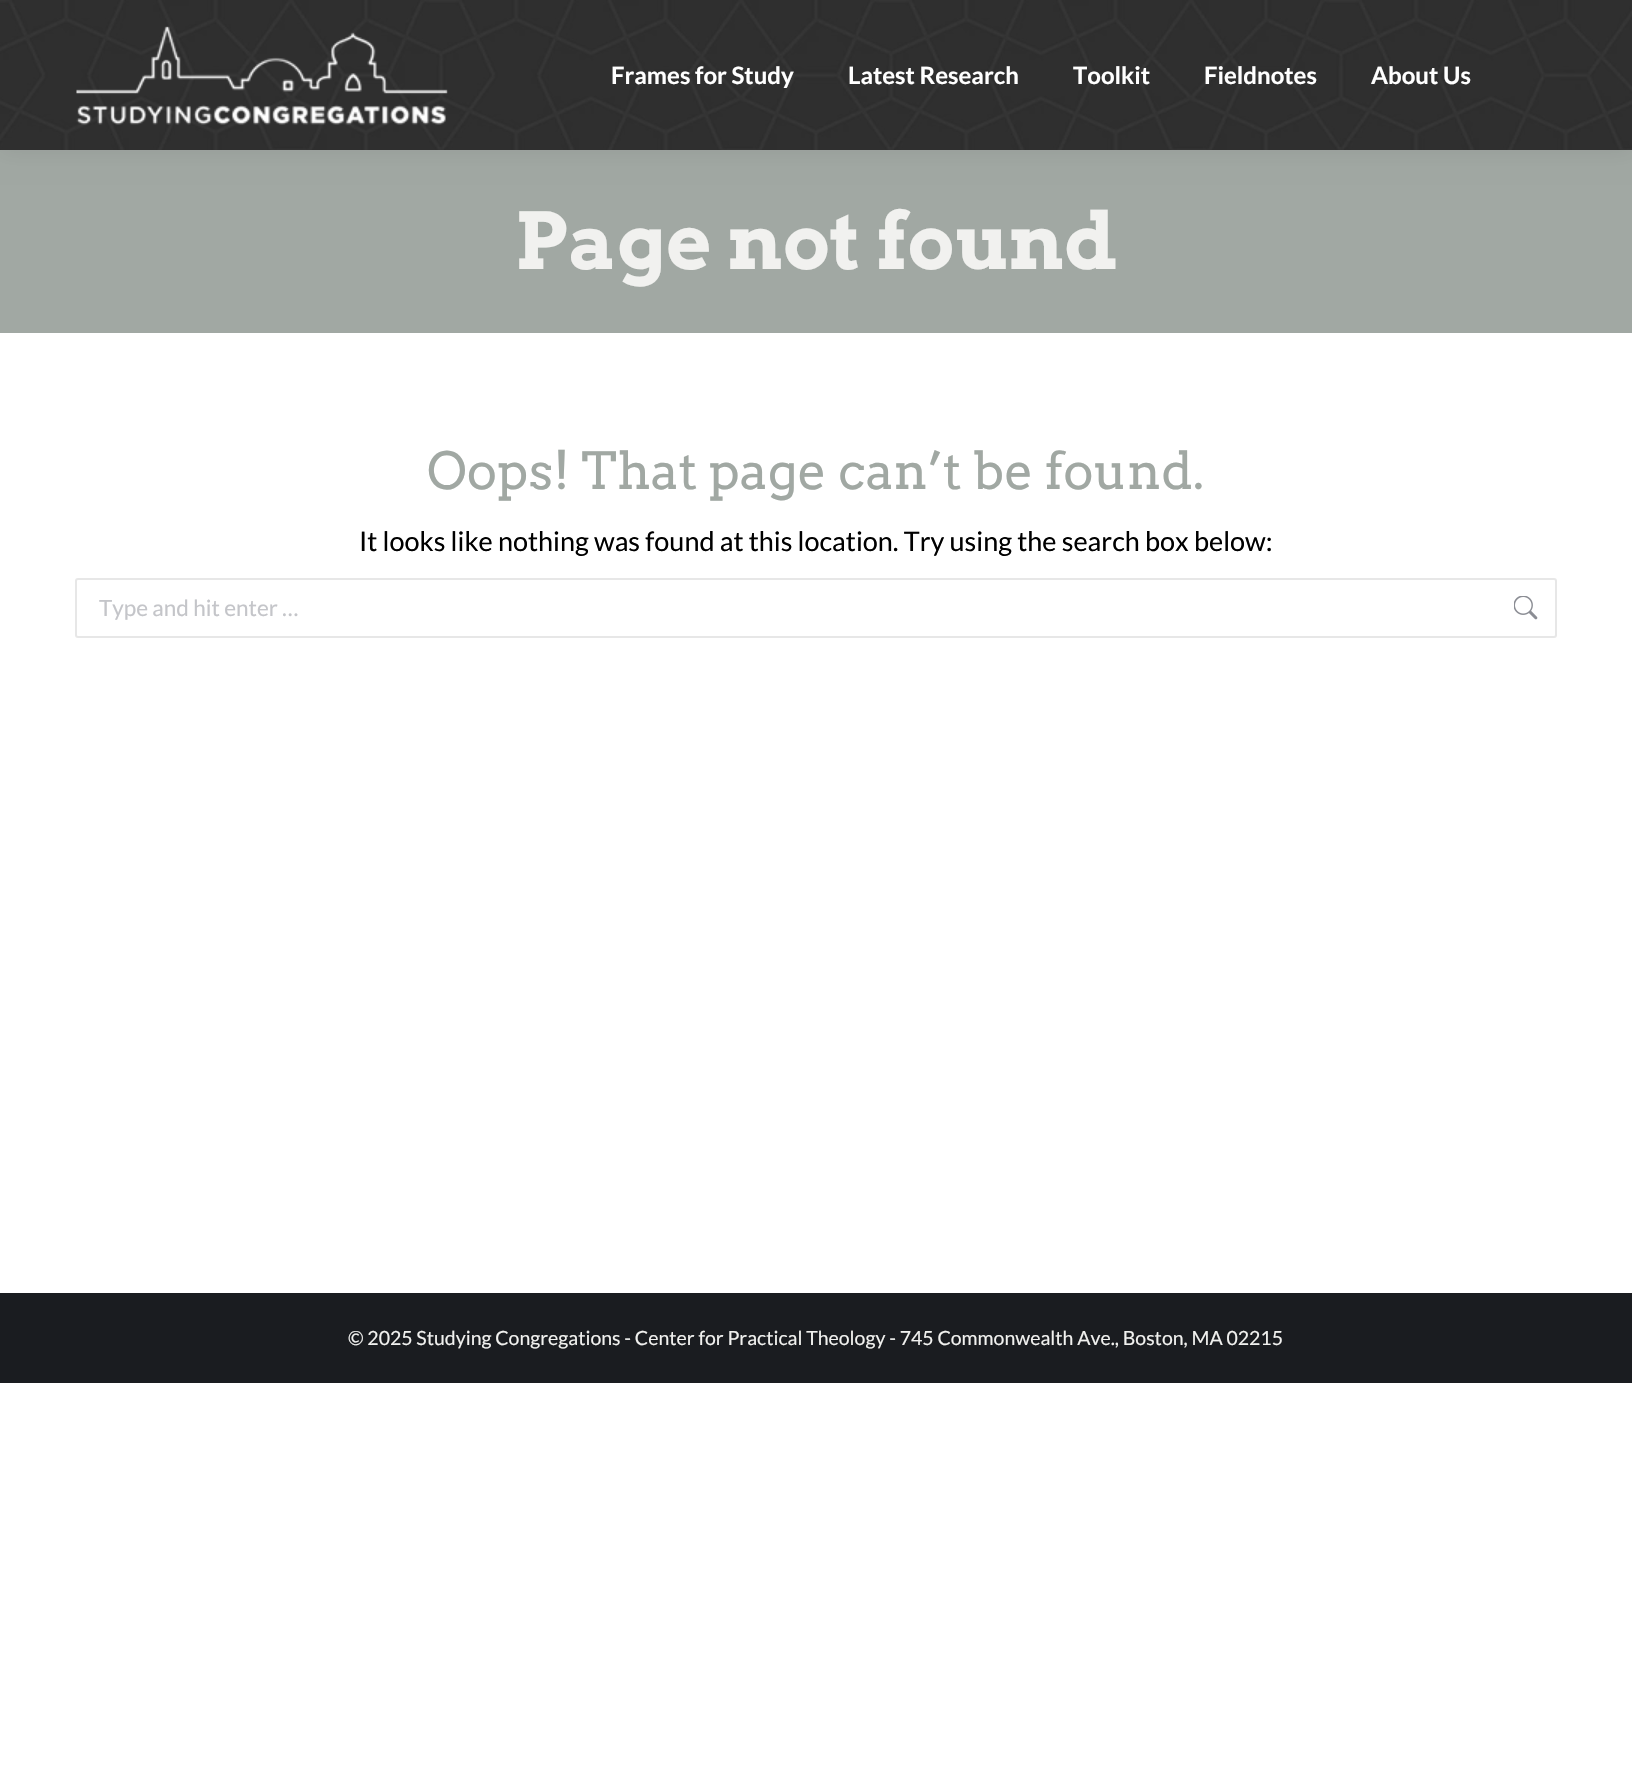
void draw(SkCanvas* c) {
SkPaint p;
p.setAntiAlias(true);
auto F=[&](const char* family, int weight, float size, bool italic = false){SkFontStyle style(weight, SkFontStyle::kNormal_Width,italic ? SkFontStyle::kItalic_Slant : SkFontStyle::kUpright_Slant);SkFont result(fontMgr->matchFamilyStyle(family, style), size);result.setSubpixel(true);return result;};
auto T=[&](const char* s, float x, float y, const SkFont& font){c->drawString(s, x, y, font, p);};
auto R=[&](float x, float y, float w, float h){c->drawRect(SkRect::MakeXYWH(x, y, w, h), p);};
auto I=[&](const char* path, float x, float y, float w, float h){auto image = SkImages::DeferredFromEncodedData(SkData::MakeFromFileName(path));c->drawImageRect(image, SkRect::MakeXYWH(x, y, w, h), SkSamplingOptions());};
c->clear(0xffffffff);
p.setColor(0xffa1a8a3);
R(0,150,1632,183);
p.setColor(0x12000000);
p.setMaskFilter(SkMaskFilter::MakeBlur(kNormal_SkBlurStyle, 11));
c->drawRect(SkRect::MakeXYWH(-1,-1,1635,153),p);
p.setMaskFilter(nullptr);
p.setColor(0xff333333);
R(0,0,1632,150);
I("1.png",0,0,1632,150);
I("2.png",76,26,372,99);
auto f1 = F("Lato",700,24);
p.setColor(0xffffffff);
T("Frames for Study",611,84,f1);
T("Latest Research",848,84,f1);
T("Toolkit",1073,84,f1);
T("Fieldnotes",1204,84,f1);
T("About Us",1371,84,f1);
auto f2 = F("Arvo",700,78);
p.setColor(0xfff1f1ef);
T("Page not found",515,269,f2);
auto f3 = F("Arvo",400,51);
p.setColor(0xffa1a8a3);
T("Oops! That page can’t be found.",427,489,f3);
auto f4 = F("Lato",400,27);
p.setColor(0xff000000);
T("It looks like nothing was found at this location. Try using the search box below:",359,551,f4);
p.setStroke(true);
p.setStrokeWidth(2);
p.setColor(0xffe7e7e7);
c->drawRoundRect(SkRect::MakeXYWH(76,579,1480,58),2,2,p);
auto f5 = F("Lato",400,22.5);
p.setStroke(false);
p.setColor(0xffc4c5c9);
T("Type and hit enter …",99,616,f5);
I("3.png",1514,596,24,24);
p.setColor(0xff1a1c20);
R(0,1293,1632,90);
auto f6 = F("Lato",400,19.5);
p.setColor(0xfff1f1ef);
T("© 2025 Studying Congregations - Center for Practical Theology - 745 Commonwealth Ave., Boston, MA 02215",348,1345,f6);
}
